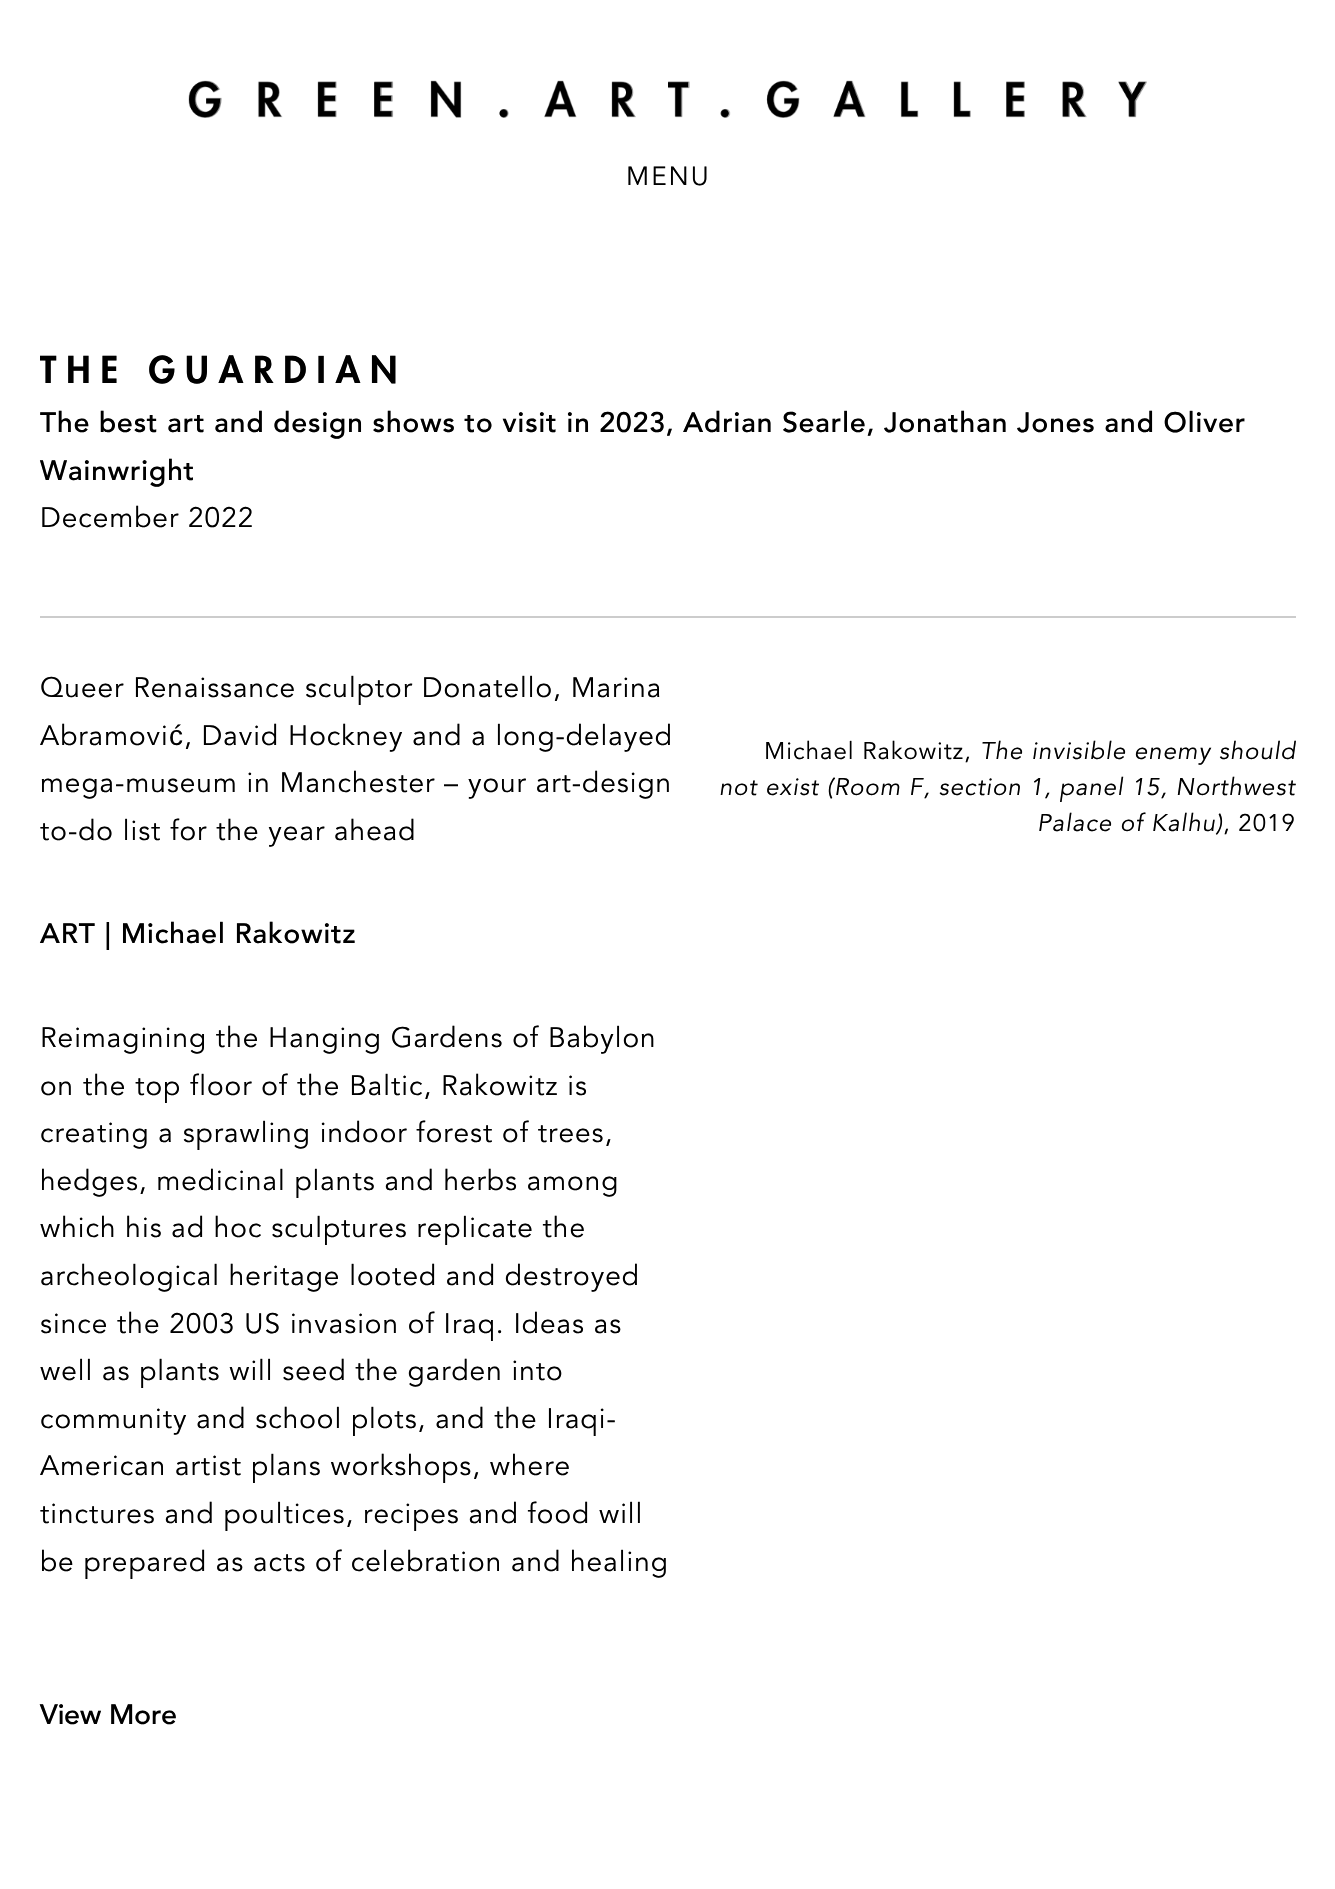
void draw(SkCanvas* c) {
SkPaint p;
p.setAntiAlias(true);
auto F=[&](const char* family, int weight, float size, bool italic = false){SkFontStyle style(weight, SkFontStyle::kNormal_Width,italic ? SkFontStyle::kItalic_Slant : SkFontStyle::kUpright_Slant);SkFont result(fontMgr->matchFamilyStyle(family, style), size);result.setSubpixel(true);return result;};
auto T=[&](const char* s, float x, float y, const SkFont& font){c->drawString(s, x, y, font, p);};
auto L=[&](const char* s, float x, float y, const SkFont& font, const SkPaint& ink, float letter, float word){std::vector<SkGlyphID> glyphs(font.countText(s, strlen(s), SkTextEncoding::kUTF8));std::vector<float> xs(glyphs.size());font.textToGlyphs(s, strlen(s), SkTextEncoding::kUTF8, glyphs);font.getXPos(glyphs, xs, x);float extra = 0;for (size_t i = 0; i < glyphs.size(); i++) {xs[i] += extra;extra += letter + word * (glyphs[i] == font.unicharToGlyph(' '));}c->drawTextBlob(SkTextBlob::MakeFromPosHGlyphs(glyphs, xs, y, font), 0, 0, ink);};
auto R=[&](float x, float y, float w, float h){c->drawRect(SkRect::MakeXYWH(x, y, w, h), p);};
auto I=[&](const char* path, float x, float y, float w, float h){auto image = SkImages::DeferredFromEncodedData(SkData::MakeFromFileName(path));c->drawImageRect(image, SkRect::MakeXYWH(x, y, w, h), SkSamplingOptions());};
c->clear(0xffffffff);
I("1.png",188,80,959,38);
auto f1 = F("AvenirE",400,26);
p.setColor(0xff000000);
L("MENU",626,185,f1,p,2,0);
p.setColor(0xffcccccc);
R(40,616,1256,2);
auto f2 = F("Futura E",900,36);
p.setColor(0xff000000);
L("THE GUARDIAN",40,383,f2,p,10,0);
auto f3 = F("AvenirE",600,28);
L("The best art and design shows to visit in 2023, Adrian Searle, Jonathan Jones and Oliver",40,432,f3,p,1,0);
L("Wainwright",40,480,f3,p,1,0);
auto f4 = F("AvenirE",400,28);
L("December 2022",40,527,f4,p,1,0);
L("Queer Renaissance sculptor Donatello, Marina",40,697,f4,p,1,0);
L("Abramovi",40,745,f4,p,1,0);
auto f5 = F("Liberation Sans",400,28);
L("ć",169,745,f5,p,1,0);
L(", David Hockney and a long-delayed",184,745,f4,p,1,0);
L("mega-museum in Manchester – your art-design",40,792,f4,p,1,0);
L("to-do list for the year ahead",40,840,f4,p,1,0);
L("ART | Michael Rakowitz",40,943,f3,p,1,0);
L("Reimagining the Hanging Gardens of Babylon",40,1047,f4,p,1,0);
L("on the top floor of the Baltic, Rakowitz is",40,1095,f4,p,1,0);
L("creating a sprawling indoor forest of trees,",40,1142,f4,p,1,0);
L("hedges, medicinal plants and herbs among",40,1190,f4,p,1,0);
L("which his ad hoc sculptures replicate the",40,1237,f4,p,1,0);
L("archeological heritage looted and destroyed",40,1285,f4,p,1,0);
L("since the 2003 US invasion of Iraq. Ideas as",40,1333,f4,p,1,0);
L("well as plants will seed the garden into",40,1380,f4,p,1,0);
L("community and school plots, and the Iraqi-",40,1428,f4,p,1,0);
L("American artist plans workshops, where",40,1475,f4,p,1,0);
L("tinctures and poultices, recipes and food will",40,1523,f4,p,1,0);
L("be prepared as acts of celebration and healing",40,1571,f4,p,1,0);
T("View More",40,1724,f3);
auto f6 = F("AvenirE",400,24);
L("Michael Rakowitz,",764,759,f6,p,1,0);
auto f7 = F("AvenirE",400,24,true);
L("The invisible enemy should",980,759,f7,p,1,0);
L("not exist (Room F, section 1, panel 15, Northwest",719,795,f7,p,1,0);
L("Palace of Kalhu)",1037,831,f7,p,1,0);
L(", 2019",1223,831,f6,p,1,0);
}
